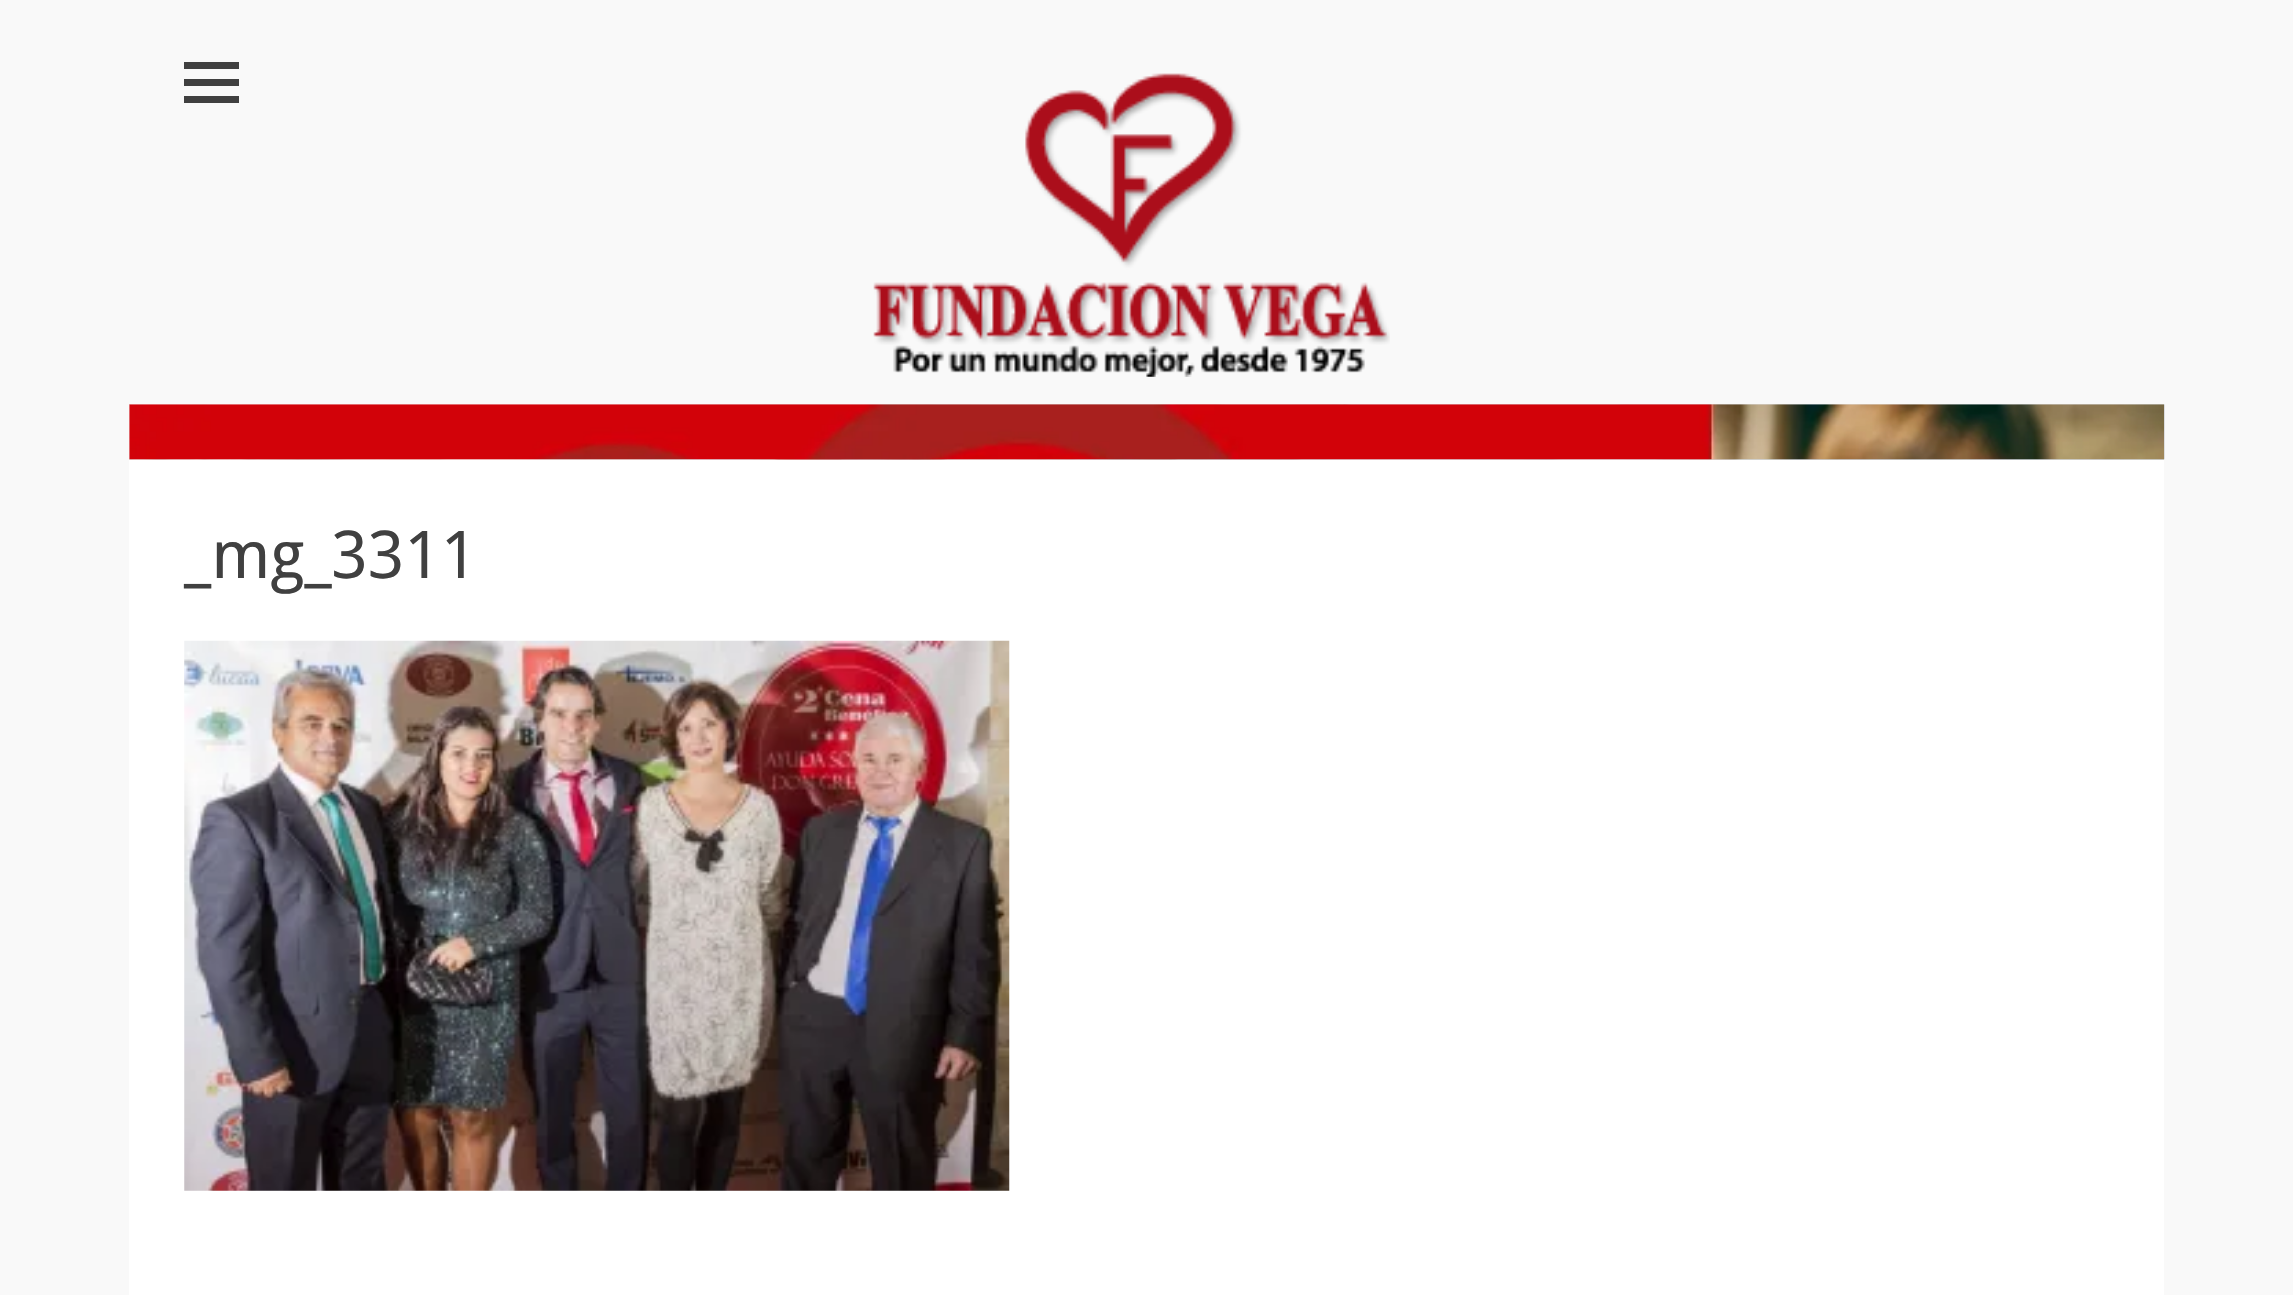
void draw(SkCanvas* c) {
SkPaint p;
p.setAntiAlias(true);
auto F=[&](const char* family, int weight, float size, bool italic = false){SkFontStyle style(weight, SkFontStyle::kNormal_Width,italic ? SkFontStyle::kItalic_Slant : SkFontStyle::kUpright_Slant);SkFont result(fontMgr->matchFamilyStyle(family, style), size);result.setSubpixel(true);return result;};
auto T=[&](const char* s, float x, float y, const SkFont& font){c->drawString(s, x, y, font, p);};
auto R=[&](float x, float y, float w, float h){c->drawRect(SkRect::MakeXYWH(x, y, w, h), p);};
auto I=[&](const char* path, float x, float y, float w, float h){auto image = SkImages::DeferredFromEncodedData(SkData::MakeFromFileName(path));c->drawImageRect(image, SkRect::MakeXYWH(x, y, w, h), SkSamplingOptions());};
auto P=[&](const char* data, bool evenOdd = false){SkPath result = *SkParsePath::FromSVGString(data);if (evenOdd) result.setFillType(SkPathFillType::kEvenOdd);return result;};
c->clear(0xfff9f9f9);
p.setColor(0xff404040);
c->drawPath(P("M184 103v-7h55v7zm0-41h55v7h-55zm0 24v-7h55v7z"),p);
I("1.png",873,73,517,304);
p.setColor(0xffffffff);
R(129,459,2035,836);
I("2.png",129,404,2036,56);
I("3.png",129,404,2036,56);
I("4.png",129,404,2035,56);
I("5.png",129,404,2035,56);
I("6.png",129,404,2036,56);
auto f1 = F("Droid Sans",400,66);
p.setColor(0xff404040);
T("_mg_3311",184,578,f1);
I("7.png",184,640,826,551);
}
